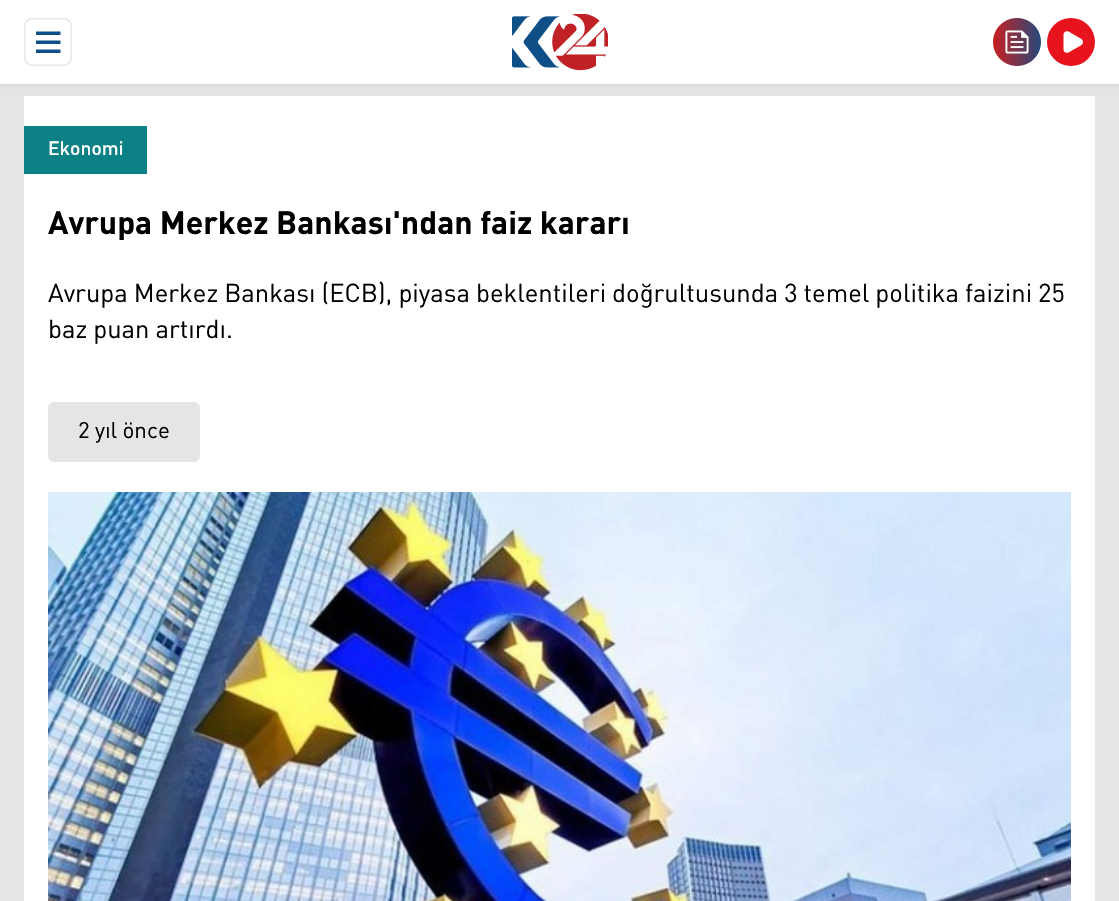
void draw(SkCanvas* c) {
SkPaint p;
p.setAntiAlias(true);
auto F=[&](const char* family, int weight, float size, bool italic = false){SkFontStyle style(weight, SkFontStyle::kNormal_Width,italic ? SkFontStyle::kItalic_Slant : SkFontStyle::kUpright_Slant);SkFont result(fontMgr->matchFamilyStyle(family, style), size);result.setSubpixel(true);return result;};
auto T=[&](const char* s, float x, float y, const SkFont& font){c->drawString(s, x, y, font, p);};
auto R=[&](float x, float y, float w, float h){c->drawRect(SkRect::MakeXYWH(x, y, w, h), p);};
auto Q=[&](float x, float y, float w, float h, float radius){c->drawRoundRect(SkRect::MakeXYWH(x, y, w, h), radius, radius, p);};
auto I=[&](const char* path, float x, float y, float w, float h){auto image = SkImages::DeferredFromEncodedData(SkData::MakeFromFileName(path));c->drawImageRect(image, SkRect::MakeXYWH(x, y, w, h), SkSamplingOptions());};
auto P=[&](const char* data, bool evenOdd = false){SkPath result = *SkParsePath::FromSVGString(data);if (evenOdd) result.setFillType(SkPathFillType::kEvenOdd);return result;};
c->clear(0xffe5e5e5);
p.setColor(0x0d000000);
p.setMaskFilter(SkMaskFilter::MakeBlur(kNormal_SkBlurStyle, 1.5));
c->drawRect(SkRect::MakeXYWH(0,2,1119,84),p);
p.setMaskFilter(nullptr);
p.setColor(0xffffffff);
R(0,0,1119,84);
p.setStroke(true);
p.setStrokeWidth(1.5);
p.setColor(0xffe8e8e8);
c->drawRoundRect(SkRect::MakeXYWH(24.75,18.75,46.5,46.5),7.25,7.25,p);
p.setStroke(false);
p.setColor(0xff0f4f87);
c->drawPath(P("M36 53v-3.5h24.5v3.5zm0-9v-3.5h24.5v3.5zm0-9v-3.5h24.5v3.5z"),p);
I("1.png",512,14,96,57);
I("2.png",993,18,48,48);
p.setColor(0xffe7131d);
c->drawCircle(1071,42,24,p);
p.setColor(0xffffffff);
c->drawPath(P("M1081.5 39c2 1.5 2 4.5 0 6l-13 7.5c-2.5 1-5-.5-5-3v-15c0-2.5 2.5-4 5-3z"),p);
R(24,96,1071,805);
p.setColor(0xff0c8185);
R(24,126,123,48);
auto f1 = F("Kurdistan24",500,18);
p.setColor(0xffffffff);
T("Ekonomi",48,155,f1);
auto f2 = F("Kurdistan24",700,30);
p.setColor(0xff000000);
T("Avrupa Merkez Bankası'ndan faiz kararı",48,234,f2);
auto f3 = F("Kurdistan24",400,24);
T("Avrupa Merkez Bankası (ECB), piyasa beklentileri doğrultusunda 3 temel politika faizini 25",48,302,f3);
T("baz puan artırdı.",48,338,f3);
p.setColor(0xffe5e5e5);
Q(48,402,152,60,6);
auto f4 = F("Kurdistan24",400,21);
p.setColor(0xff000000);
T("2 yıl önce",78,438,f4);
I("3.png",48,492,1023,409);
}
